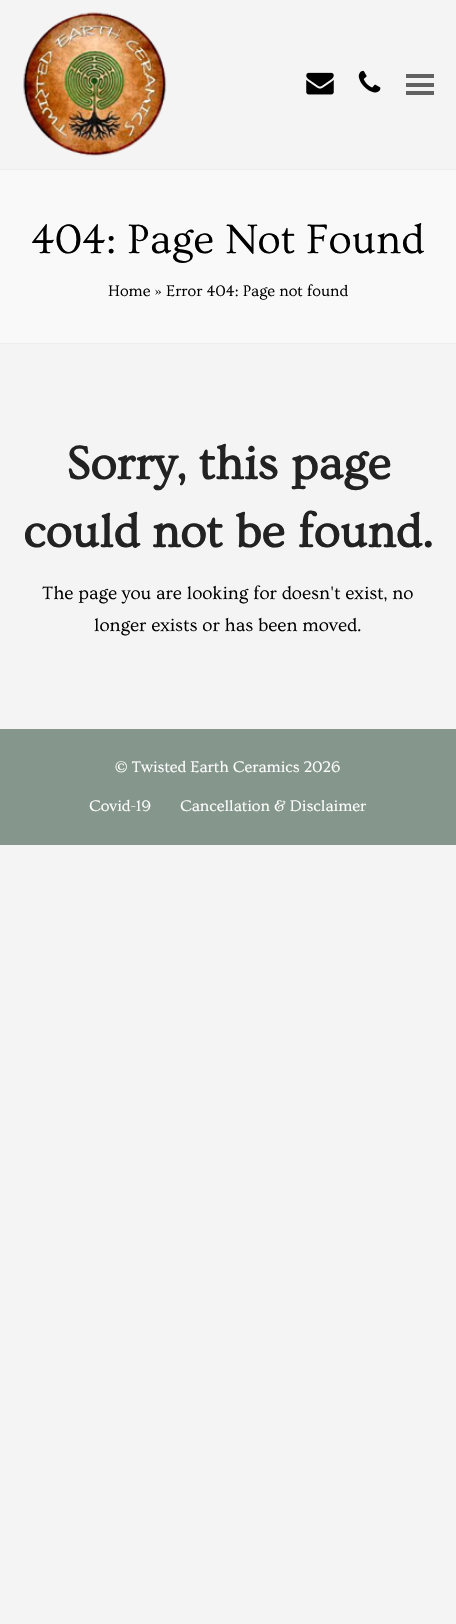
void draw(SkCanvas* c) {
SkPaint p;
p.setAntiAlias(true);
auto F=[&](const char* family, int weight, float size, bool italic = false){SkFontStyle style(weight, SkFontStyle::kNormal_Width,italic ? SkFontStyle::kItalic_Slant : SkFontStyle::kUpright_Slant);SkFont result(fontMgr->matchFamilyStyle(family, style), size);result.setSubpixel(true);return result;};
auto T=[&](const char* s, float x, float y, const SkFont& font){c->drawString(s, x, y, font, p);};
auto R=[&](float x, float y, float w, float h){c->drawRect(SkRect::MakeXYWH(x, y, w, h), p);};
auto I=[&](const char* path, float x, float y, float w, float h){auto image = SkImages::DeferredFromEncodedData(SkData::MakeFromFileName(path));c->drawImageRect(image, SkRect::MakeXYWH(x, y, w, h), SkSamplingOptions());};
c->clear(0xfff4f4f4);
I("1.png",23,12,144,144);
I("2.png",306,72,28,23);
I("3.png",358,70,23,23);
p.setColor(0xff616161);
R(406,83,28,4);
R(406,74,28,4);
R(406,91,28,4);
p.setColor(0xfff9f9f9);
R(0,170,456,173);
p.setColor(0xffeeeeee);
R(0,169,456,1);
R(0,343,456,1);
auto f1 = F("Ovo",400,43);
p.setColor(0xff000000);
T("404: Page Not Found",31,253,f1);
auto f2 = F("Ovo",400,16.1);
T("Home » Error 404: Page not found",108,296,f2);
auto f3 = F("Ovo",700,48.5);
p.setColor(0xff222222);
T("Sorry, this page",66,479,f3);
T("could not be found.",23,547,f3);
auto f4 = F("Ovo",400,18.8);
p.setColor(0xff000000);
T("The page you are looking for doesn't exist, no",42,599,f4);
T("longer exists or has been moved.",94,631,f4);
p.setColor(0xff85978d);
R(0,729,456,116);
p.setColor(0xffffffff);
T("© Twisted Earth Ceramics 2026",115,772,f2);
T("Covid-19",89,811,f2);
T("Cancellation & Disclaimer",180,811,f2);
}
